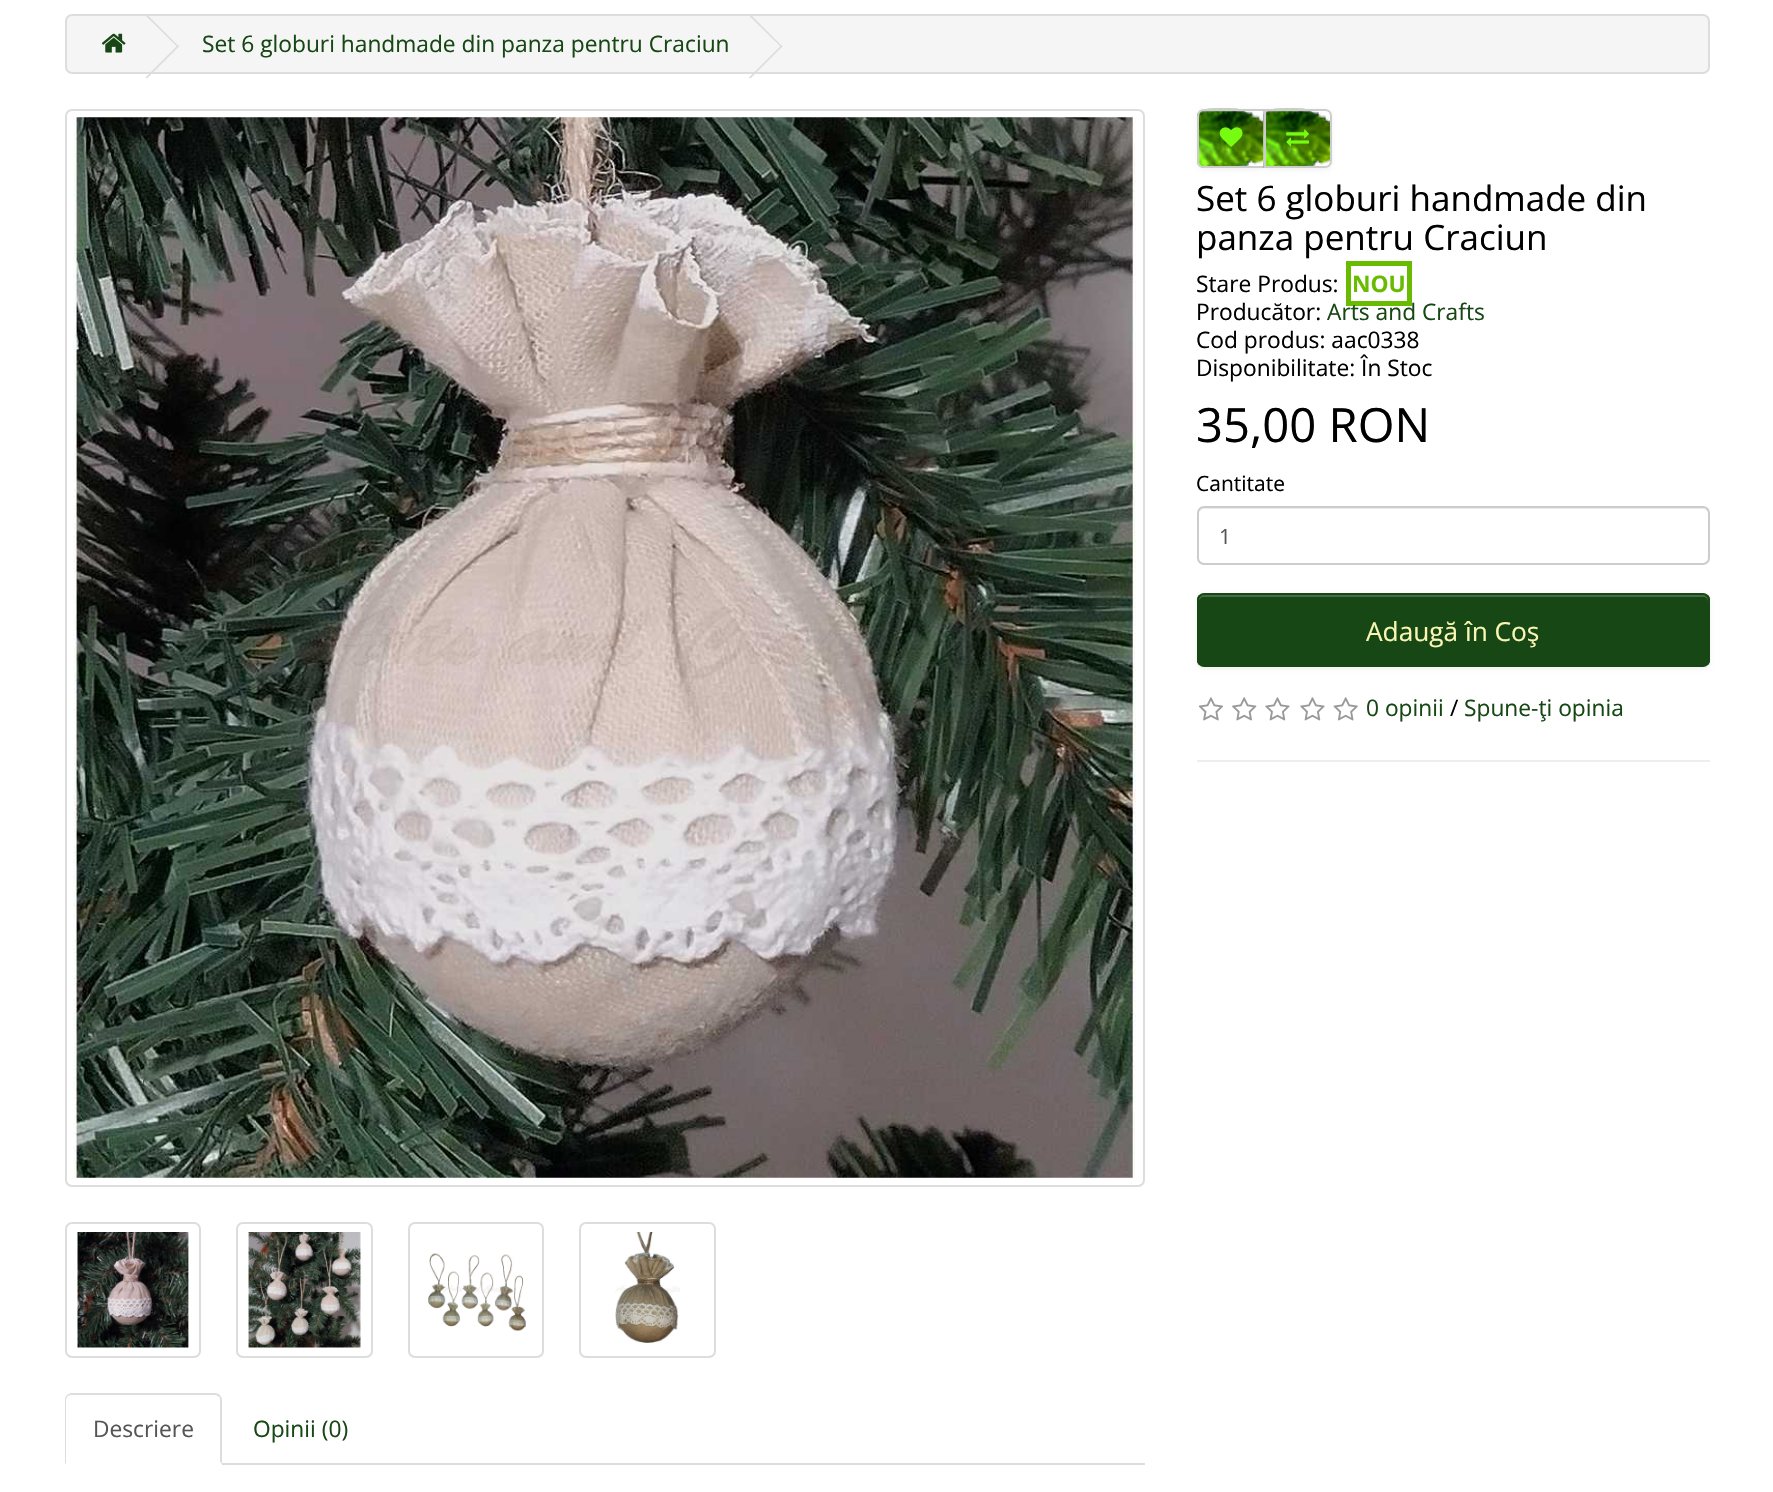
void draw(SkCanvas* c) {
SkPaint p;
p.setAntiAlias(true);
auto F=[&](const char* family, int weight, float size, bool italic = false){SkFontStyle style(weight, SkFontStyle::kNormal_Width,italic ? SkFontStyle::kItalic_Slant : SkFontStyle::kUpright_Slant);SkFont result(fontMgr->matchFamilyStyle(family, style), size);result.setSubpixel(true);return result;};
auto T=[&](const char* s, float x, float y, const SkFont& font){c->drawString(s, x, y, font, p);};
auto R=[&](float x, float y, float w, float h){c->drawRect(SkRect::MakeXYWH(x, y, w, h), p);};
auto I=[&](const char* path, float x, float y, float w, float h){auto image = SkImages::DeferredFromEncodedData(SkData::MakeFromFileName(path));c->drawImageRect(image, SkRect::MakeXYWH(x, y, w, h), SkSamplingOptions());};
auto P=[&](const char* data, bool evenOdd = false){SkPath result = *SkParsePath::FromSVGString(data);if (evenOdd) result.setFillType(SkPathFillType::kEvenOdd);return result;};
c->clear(0xffffffff);
p.setColor(0xfff5f5f5);
c->drawRoundRect(SkRect::MakeXYWH(66,15,1643,58),6,6,p);
p.setStroke(true);
p.setStrokeWidth(2);
p.setColor(0xffdddddd);
c->drawRoundRect(SkRect::MakeXYWH(66,15,1643,58),6,6,p);
I("1.png",101,33,25,20);
p.setStroke(false);
c->drawPath(P("M145.5 15.5l1.5-1l32 32l-1 1z"),p);
c->drawPath(P("M145.5 77.5l32.5-32.5l1 1.5l-32 32z"),p);
auto f1 = F("Open Sans",400,22.75);
p.setColor(0xff174715);
T("Set 6 globuri handmade din panza pentru Craciun",202,52,f1);
p.setColor(0xffdddddd);
c->drawPath(P("M749 15.5l1.5-1l32 32l-1 1z"),p);
c->drawPath(P("M749 77.5l32.5-32.5l1 1.5l-32 32z"),p);
p.setColor(0x0d000000);
p.setMaskFilter(SkMaskFilter::MakeBlur(kNormal_SkBlurStyle, 2));
c->drawRoundRect(SkRect::MakeXYWH(1197,110,68,60),7,7,p);
p.setMaskFilter(nullptr);
p.setColor(0xffffffff);
c->drawPath(P("M1204 109h61v59h-61c-4 0-7-3-7-7v-45c0-4 3-7 7-7z"),p);
I("2.png",1197,108,66,60);
p.setColor(0x33ffffff);
c->drawPath(P("M1204 112h60v-2h-60c-3 0-5 2-5 5v2c0-3 2-5 5-5z"),p);
p.setStroke(true);
p.setColor(0xffcccccc);
c->drawPath(P("M1204 110h60v57h-60c-3.5 0-6-2.5-6-6v-45c0-3.5 2.5-6 6-6z"),p);
I("3.png",1219,127,24,20);
p.setStroke(false);
p.setColor(0x0d000000);
p.setMaskFilter(SkMaskFilter::MakeBlur(kNormal_SkBlurStyle, 2));
c->drawRoundRect(SkRect::MakeXYWH(1264,110,68,60),7,7,p);
p.setMaskFilter(nullptr);
p.setColor(0xffffffff);
c->drawPath(P("M1264 109h61c4 0 7 3 7 7v45c0 4-3 7-7 7h-61z"),p);
I("4.png",1263,108,67,60);
p.setColor(0x33ffffff);
c->drawPath(P("M1265 112h60c3 0 5 2 5 5v-2c0-3-2-5-5-5h-60z"),p);
p.setStroke(true);
p.setColor(0xffcccccc);
c->drawPath(P("M1265 110h60c3.5 0 6 2.5 6 6v45c0 3.5-2.5 6-6 6h-60z"),p);
I("5.png",1286,129,23,18);
auto f2 = F("Open Sans",400,35);
p.setStroke(false);
p.setColor(0xff000000);
T("Set 6 globuri handmade din",1196,211,f2);
T("panza pentru Craciun",1196,250,f2);
T("Stare Produs:",1196,292,f1);
p.setStroke(true);
p.setStrokeWidth(5);
p.setColor(0xff69bb00);
c->drawRect(SkRect::MakeXYWH(1348.5,263.5,61,40),p);
auto f3 = F("Open Sans",700,22.75);
p.setStroke(false);
T("NOU",1352,292,f3);
p.setColor(0xff000000);
T("Producător:",1196,320,f1);
p.setColor(0xff174715);
T("Arts and Crafts",1327,320,f1);
p.setColor(0xff000000);
T("Cod produs: aac0338",1196,348,f1);
T("Disponibilitate: În Stoc",1196,376,f1);
auto f4 = F("Open Sans",400,47.25);
T("35,00 RON",1196,442,f4);
auto f5 = F("Open Sans",400,21);
T("Cantitate",1196,491,f5);
p.setColor(0xffececec);
c->drawPath(P("M1204 509h499c3 0 5 3 5 5v-1c0-3-2-5-5-5h-499c-3 0-5 2-5 5v1c0-2 2-5 5-5z"),p);
p.setStroke(true);
p.setStrokeWidth(2);
p.setColor(0xffcccccc);
c->drawRoundRect(SkRect::MakeXYWH(1198,507,511,57),6,6,p);
p.setStroke(false);
p.setColor(0xff555555);
T("1",1219,544,f5);
p.setColor(0x0d000000);
p.setMaskFilter(SkMaskFilter::MakeBlur(kNormal_SkBlurStyle, 2));
c->drawRoundRect(SkRect::MakeXYWH(1197,595,513,74),7,7,p);
p.setMaskFilter(nullptr);
c->save();
c->clipPath(P("M1204 593h499c4 0 7 3 7 7v60c0 4-3 7-7 7h-499c-4 0-7-3-7-7v-60c0-4 3-7 7-7z"),true);
p.setColor(0xff174715);
R(1197,595,513,70);
c->restore();
p.setColor(0xff456c44);
c->drawPath(P("M1204 597h499c3 0 5 2 5 5v-2c0-3-2-5-5-5h-499c-3 0-5 2-5 5v2c0-3 2-5 5-5z"),p);
p.setStroke(true);
p.setColor(0xff174715);
c->drawRoundRect(SkRect::MakeXYWH(1198,594,511,72),6,6,p);
auto f6 = F("Open Sans",400,26.25);
p.setStroke(false);
p.setColor(0xfff9f6b3);
T("Adaugă în Coş",1366,641,f6);
I("6.png",1198,697,26,24);
I("7.png",1232,697,25,24);
I("8.png",1265,697,25,24);
I("8.png",1300,697,25,24);
I("9.png",1333,697,25,24);
p.setColor(0xff174715);
T("0 opinii",1366,716,f1);
p.setColor(0xff000000);
T("/",1450,716,f1);
p.setColor(0xff174715);
T("Spune-ţi opinia",1464,716,f1);
p.setColor(0xffeeeeee);
R(1197,760,513,2);
p.setStroke(true);
p.setColor(0xffdddddd);
c->drawRoundRect(SkRect::MakeXYWH(66,110,1078,1076),6,6,p);
I("10.png",73,117,1063,1061);
c->drawRoundRect(SkRect::MakeXYWH(66,1223,134,134),6,6,p);
I("11.png",77,1232,112,116);
c->drawRoundRect(SkRect::MakeXYWH(237,1223,135,134),6,6,p);
I("12.png",248,1232,113,116);
c->drawRoundRect(SkRect::MakeXYWH(409,1223,134,134),6,6,p);
I("13.png",428,1253,98,78);
c->drawRoundRect(SkRect::MakeXYWH(580,1223,135,134),6,6,p);
I("14.png",615,1232,66,111);
p.setStroke(false);
R(222,1463,923,2);
c->drawPath(P("M72 1393c-2 0-4 1-5 2l1 1c1-1 3-1 4-1h143c2 0 3 1 4 2l1-2c-1-1-3-2-5-2z"),p);
c->drawPath(P("M220 1395c1 1 2 3 2 5v64l-2-2v-62c0-1 0-3-1-3z"),p);
c->drawPath(P("M67 1395c-1 1-2 3-2 5v64l1-1v-64l2-3z"),p);
p.setColor(0xff555555);
T("Descriere",93,1437,f1);
p.setColor(0xff174715);
T("Opinii (0)",253,1437,f1);
}
